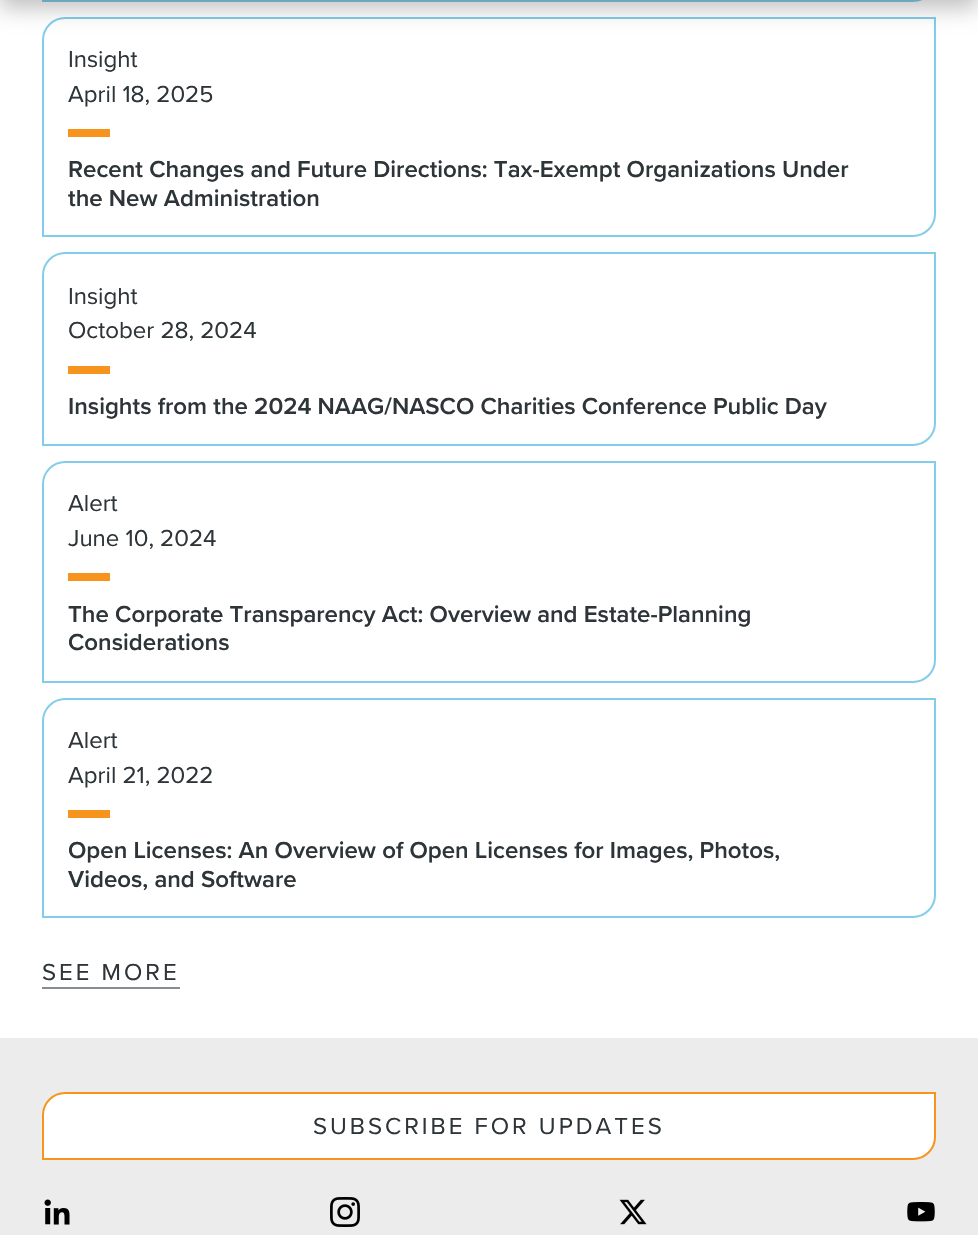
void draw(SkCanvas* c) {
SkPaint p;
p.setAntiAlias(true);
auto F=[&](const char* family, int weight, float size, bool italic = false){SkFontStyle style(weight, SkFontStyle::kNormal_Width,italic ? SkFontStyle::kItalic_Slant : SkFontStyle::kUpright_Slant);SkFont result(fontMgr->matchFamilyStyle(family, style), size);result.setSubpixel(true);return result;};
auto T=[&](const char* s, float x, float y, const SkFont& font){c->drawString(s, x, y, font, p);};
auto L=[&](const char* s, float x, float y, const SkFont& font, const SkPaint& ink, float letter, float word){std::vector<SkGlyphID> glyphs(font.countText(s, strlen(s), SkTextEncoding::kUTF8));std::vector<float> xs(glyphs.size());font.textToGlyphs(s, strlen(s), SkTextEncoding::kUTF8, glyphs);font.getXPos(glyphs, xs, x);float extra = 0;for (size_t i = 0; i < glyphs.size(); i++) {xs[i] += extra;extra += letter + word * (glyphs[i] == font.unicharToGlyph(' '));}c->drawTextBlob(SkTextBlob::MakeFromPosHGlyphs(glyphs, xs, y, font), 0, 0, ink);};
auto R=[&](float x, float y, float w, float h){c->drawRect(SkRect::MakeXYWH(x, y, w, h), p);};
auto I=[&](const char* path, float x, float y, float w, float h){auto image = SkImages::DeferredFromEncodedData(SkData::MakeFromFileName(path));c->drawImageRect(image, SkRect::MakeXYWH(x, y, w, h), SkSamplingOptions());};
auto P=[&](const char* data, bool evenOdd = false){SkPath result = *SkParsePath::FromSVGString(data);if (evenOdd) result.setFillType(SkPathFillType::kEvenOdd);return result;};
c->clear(0xffececec);
p.setColor(0xffffffff);
R(0,0,978,1038);
p.setStroke(true);
p.setStrokeWidth(2);
p.setColor(0xff82ceea);
c->drawPath(P("M65-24h870v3c0 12-10 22-22 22h-870v-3c0-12 10-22 22-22z"),p);
c->drawPath(P("M65 18h870v196c0 12-10 22-22 22h-870v-196c0-12 10-22 22-22z"),p);
p.setStroke(false);
p.setColor(0x40000000);
p.setMaskFilter(SkMaskFilter::MakeBlur(kNormal_SkBlurStyle, 11));
c->drawRect(SkRect::MakeXYWH(0,-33,978,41),p);
p.setMaskFilter(nullptr);
auto f1 = F("Proxima Nova",400,24);
p.setColor(0xff2d3539);
T("Insight",68,67,f1);
T("April 18, 2025",68,102,f1);
p.setColor(0xfff7941d);
R(68,129,42,8);
auto f2 = F("Proxima Nova",600,24);
p.setColor(0xff2d3539);
T("Recent Changes and Future Directions: Tax-Exempt Organizations Under",68,177,f2);
T("the New Administration",68,206,f2);
p.setStroke(true);
p.setColor(0xff82ceea);
c->drawPath(P("M65 253h870v170c0 12-10 22-22 22h-870v-170c0-12 10-22 22-22z"),p);
p.setStroke(false);
p.setColor(0xff2d3539);
T("Insight",68,304,f1);
T("October 28, 2024",68,338,f1);
p.setColor(0xfff7941d);
R(68,366,42,8);
p.setColor(0xff2d3539);
T("Insights from the 2024 NAAG/NASCO Charities Conference Public Day",68,414,f2);
p.setStroke(true);
p.setColor(0xff82ceea);
c->drawPath(P("M65 462h870v198c0 12-10 22-22 22h-870v-198c0-12 10-22 22-22z"),p);
p.setStroke(false);
p.setColor(0xff2d3539);
T("Alert",68,511,f1);
T("June 10, 2024",68,546,f1);
p.setColor(0xfff7941d);
R(68,573,42,8);
p.setColor(0xff2d3539);
T("The Corporate Transparency Act: Overview and Estate-Planning",68,622,f2);
T("Considerations",68,650,f2);
p.setStroke(true);
p.setColor(0xff82ceea);
c->drawPath(P("M65 699h870v196c0 12-10 22-22 22h-870v-196c0-12 10-22 22-22z"),p);
p.setStroke(false);
p.setColor(0xff2d3539);
T("Alert",68,748,f1);
T("April 21, 2022",68,783,f1);
p.setColor(0xfff7941d);
R(68,810,42,8);
p.setColor(0xff2d3539);
T("Open Licenses: An Overview of Open Licenses for Images, Photos,",68,858,f2);
T("Videos, and Software",68,887,f2);
L("SEE MORE",42,980,f1,p,3,0);
p.setColor(0xff868d91);
R(42,987,138,2);
p.setColor(0xffffffff);
c->drawPath(P("M65 1093h870v44c0 12-10 22-22 22h-870v-44c0-12 10-22 22-22z"),p);
p.setStroke(true);
p.setColor(0xfff7941d);
c->drawPath(P("M65 1093h870v44c0 12-10 22-22 22h-870v-44c0-12 10-22 22-22z"),p);
p.setStroke(false);
p.setColor(0xff2d3539);
L("SUBSCRIBE FOR UPDATES",313,1134,f1,p,3,0);
I("1.png",44,1199,26,26);
I("2.png",330,1197,30,30);
I("3.png",619,1199,28,26);
I("4.png",907,1202,28,20);
}
